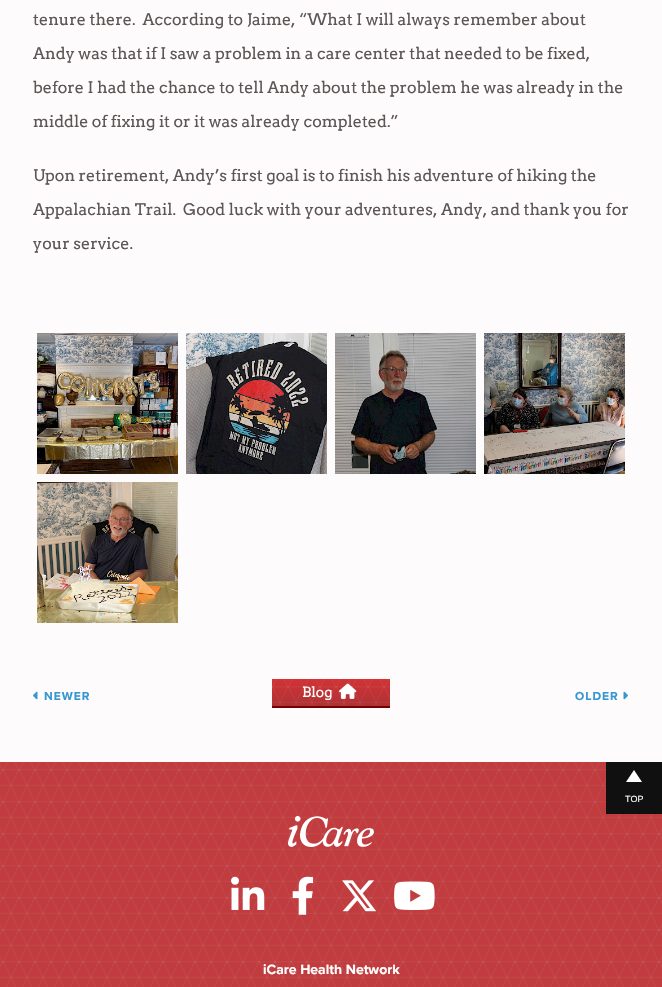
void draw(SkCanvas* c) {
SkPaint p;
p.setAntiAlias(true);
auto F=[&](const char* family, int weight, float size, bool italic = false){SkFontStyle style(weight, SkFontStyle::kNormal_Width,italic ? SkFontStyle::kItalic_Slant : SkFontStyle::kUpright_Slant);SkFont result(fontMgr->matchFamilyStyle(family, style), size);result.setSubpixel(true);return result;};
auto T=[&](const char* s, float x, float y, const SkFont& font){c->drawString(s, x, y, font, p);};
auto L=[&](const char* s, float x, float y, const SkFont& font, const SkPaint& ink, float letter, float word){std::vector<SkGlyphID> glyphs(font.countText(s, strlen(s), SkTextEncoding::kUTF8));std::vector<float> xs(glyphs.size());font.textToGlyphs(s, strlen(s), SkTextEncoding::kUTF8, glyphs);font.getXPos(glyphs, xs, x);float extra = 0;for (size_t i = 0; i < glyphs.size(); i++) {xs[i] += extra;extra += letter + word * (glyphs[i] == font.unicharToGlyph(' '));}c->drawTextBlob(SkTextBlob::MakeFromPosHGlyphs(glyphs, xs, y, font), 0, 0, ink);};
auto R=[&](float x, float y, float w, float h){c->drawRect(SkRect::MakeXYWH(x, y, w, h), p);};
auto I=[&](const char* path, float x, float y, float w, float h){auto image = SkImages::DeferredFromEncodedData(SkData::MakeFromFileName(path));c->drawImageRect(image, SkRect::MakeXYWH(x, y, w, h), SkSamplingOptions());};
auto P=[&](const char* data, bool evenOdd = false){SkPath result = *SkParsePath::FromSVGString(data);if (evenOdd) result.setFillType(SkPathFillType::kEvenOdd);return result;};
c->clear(0xfffdfbfb);
auto f1 = F("Arvo",400,16);
p.setColor(0xff5d5656);
T("tenure there.  According to Jaime, “What I will always remember about",33,25,f1);
T("Andy was that if I saw a problem in a care center that needed to be fixed,",33,59,f1);
T("before I had the chance to tell Andy about the problem he was already in the",33,93,f1);
T("middle of fixing it or it was already completed.”",33,127,f1);
T("Upon retirement, Andy’s first goal is to finish his adventure of hiking the",33,181,f1);
T("Appalachian Trail.  Good luck with your adventures, Andy, and thank you for",33,215,f1);
T("your service.",33,249,f1);
I("1.png",37,333,141,141);
I("2.png",186,333,141,141);
I("3.png",335,333,141,141);
I("4.png",484,333,141,141);
I("5.png",37,482,141,141);
I("6.png",33,691,5,9);
auto f2 = F("Proxima Nova",700,12);
p.setColor(0xff3697d2);
L("NEWER",44,700,f2,p,1,0);
p.setColor(0xff750000);
R(272,706,118,2);
I("7.png",272,679,118,27);
auto f3 = F("Arvo",400,14);
p.setColor(0xffffffff);
T("Blog",302,697,f3);
I("8.png",339,683,18,16);
p.setColor(0xff3697d2);
L("OLDER",575,700,f2,p,1,0);
I("9.png",623,691,5,9);
p.setColor(0xffc03c3f);
R(0,762,662,225);
I("10.png",0,762,662,225);
p.setColor(0xff101010);
R(606,762,56,52);
p.setColor(0xffffffff);
c->drawPath(P("M642 782h-16l8-12z"),p);
auto f4 = F("Liberation Sans",400,9);
T("TOP",625,802,f4);
I("11.png",288,816,86,31);
I("12.png",231,876,34,34);
I("13.png",292,876,22,39);
I("14.png",342,880,34,32);
I("15.png",394,881,41,29);
auto f5 = F("Proxima Nova",700,14);
T("iCare Health Network",263,974,f5);
}
